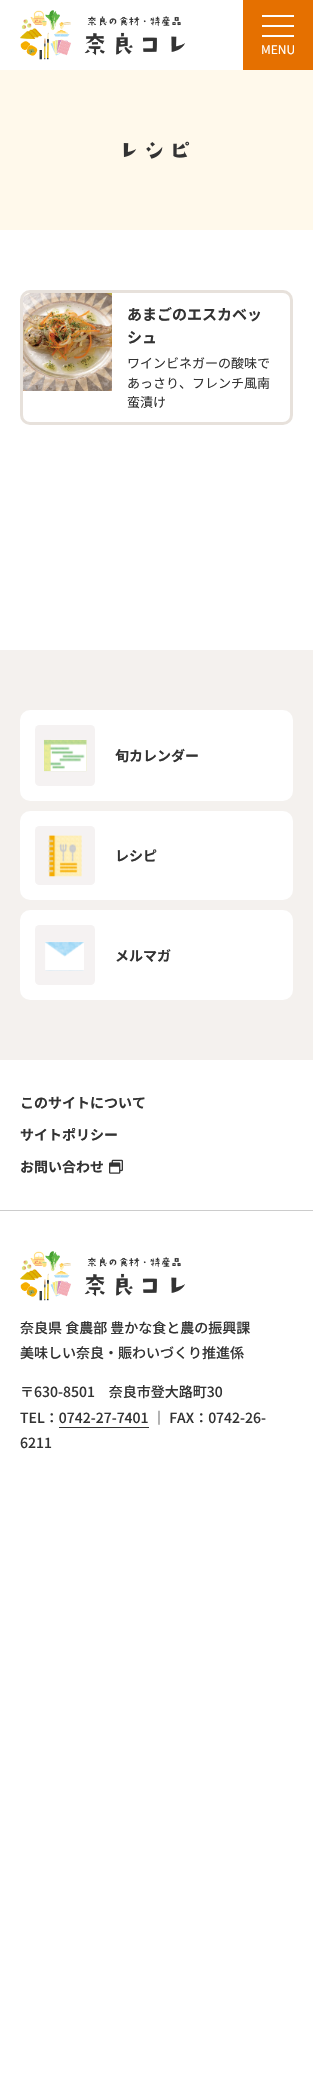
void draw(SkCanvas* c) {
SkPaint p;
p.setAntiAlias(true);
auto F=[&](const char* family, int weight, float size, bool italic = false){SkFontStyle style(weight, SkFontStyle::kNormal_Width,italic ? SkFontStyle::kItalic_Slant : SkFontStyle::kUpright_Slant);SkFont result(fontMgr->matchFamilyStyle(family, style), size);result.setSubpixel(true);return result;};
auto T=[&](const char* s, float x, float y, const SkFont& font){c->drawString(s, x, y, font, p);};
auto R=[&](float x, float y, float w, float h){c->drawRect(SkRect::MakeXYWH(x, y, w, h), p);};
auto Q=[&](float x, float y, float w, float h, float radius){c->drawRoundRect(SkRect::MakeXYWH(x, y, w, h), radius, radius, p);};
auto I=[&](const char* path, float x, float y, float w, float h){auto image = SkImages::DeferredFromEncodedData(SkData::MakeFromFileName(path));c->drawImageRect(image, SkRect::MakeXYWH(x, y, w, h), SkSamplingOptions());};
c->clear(0xffffffff);
I("1.png",20,10,165,50);
p.setColor(0xffe57000);
R(243,0,70,70);
p.setColor(0xffffffff);
R(262,15,32,2);
R(262,25,32,2);
R(262,35,32,2);
auto f1 = F("Noto Sans JP",400,12);
T("MENU",261,54,f1);
p.setColor(0xfffff9eb);
R(0,70,313,160);
I("2.png",123,141,67,18);
p.setStroke(true);
p.setStrokeWidth(3);
p.setColor(0xffe7e1db);
c->drawRoundRect(SkRect::MakeXYWH(21.5,291.5,270,132),8.5,8.5,p);
I("3.png",23,293,89,98);
auto f2 = F("Noto Sans JP",700,15);
p.setStroke(false);
p.setColor(0xff333333);
T("あまごのエスカベッ",127,320,f2);
T("シュ",127,343,f2);
auto f3 = F("Noto Sans JP",400,13);
T("ワインビネガーの酸味で",127,368,f3);
T("あっさり、フレンチ風南",127,388,f3);
T("蛮漬け",127,407,f3);
p.setColor(0xfff4f1ee);
R(0,650,313,410);
p.setColor(0xffffffff);
Q(20,710,273,91,10);
I("4.png",35,725,60,61);
auto f4 = F("Noto Sans JP",700,14);
p.setColor(0xff333333);
T("旬カレンダー",115,761,f4);
p.setColor(0xffffffff);
Q(20,811,273,89,10);
I("5.png",35,826,60,59);
p.setColor(0xff333333);
T("レシピ",115,861,f4);
p.setColor(0xffffffff);
Q(20,910,273,90,10);
I("6.png",35,925,60,60);
p.setColor(0xff333333);
T("メルマガ",115,961,f4);
T("このサイトについて",20,1108,f4);
T("サイトポリシー",20,1140,f4);
T("お問い合わせ",20,1172,f4);
I("7.png",109,1159,14,15);
p.setColor(0xffcccccc);
R(0,1210,313,1);
I("1.png",20,1251,165,50);
auto f5 = F("Noto Sans JP",500,14);
p.setColor(0xff333333);
T("奈良県 食農部 豊かな食と農の振興課",20,1333,f5);
T("美味しい奈良・賑わいづくり推進係",20,1358,f5);
T("〒630-8501　奈良市登大路町30",20,1397,f5);
T("TEL：0742-27-7401",20,1423,f5);
T("｜ FAX：0742-26-",152,1423,f5);
R(59,1427,90,1);
T("6211",20,1448,f5);
}
